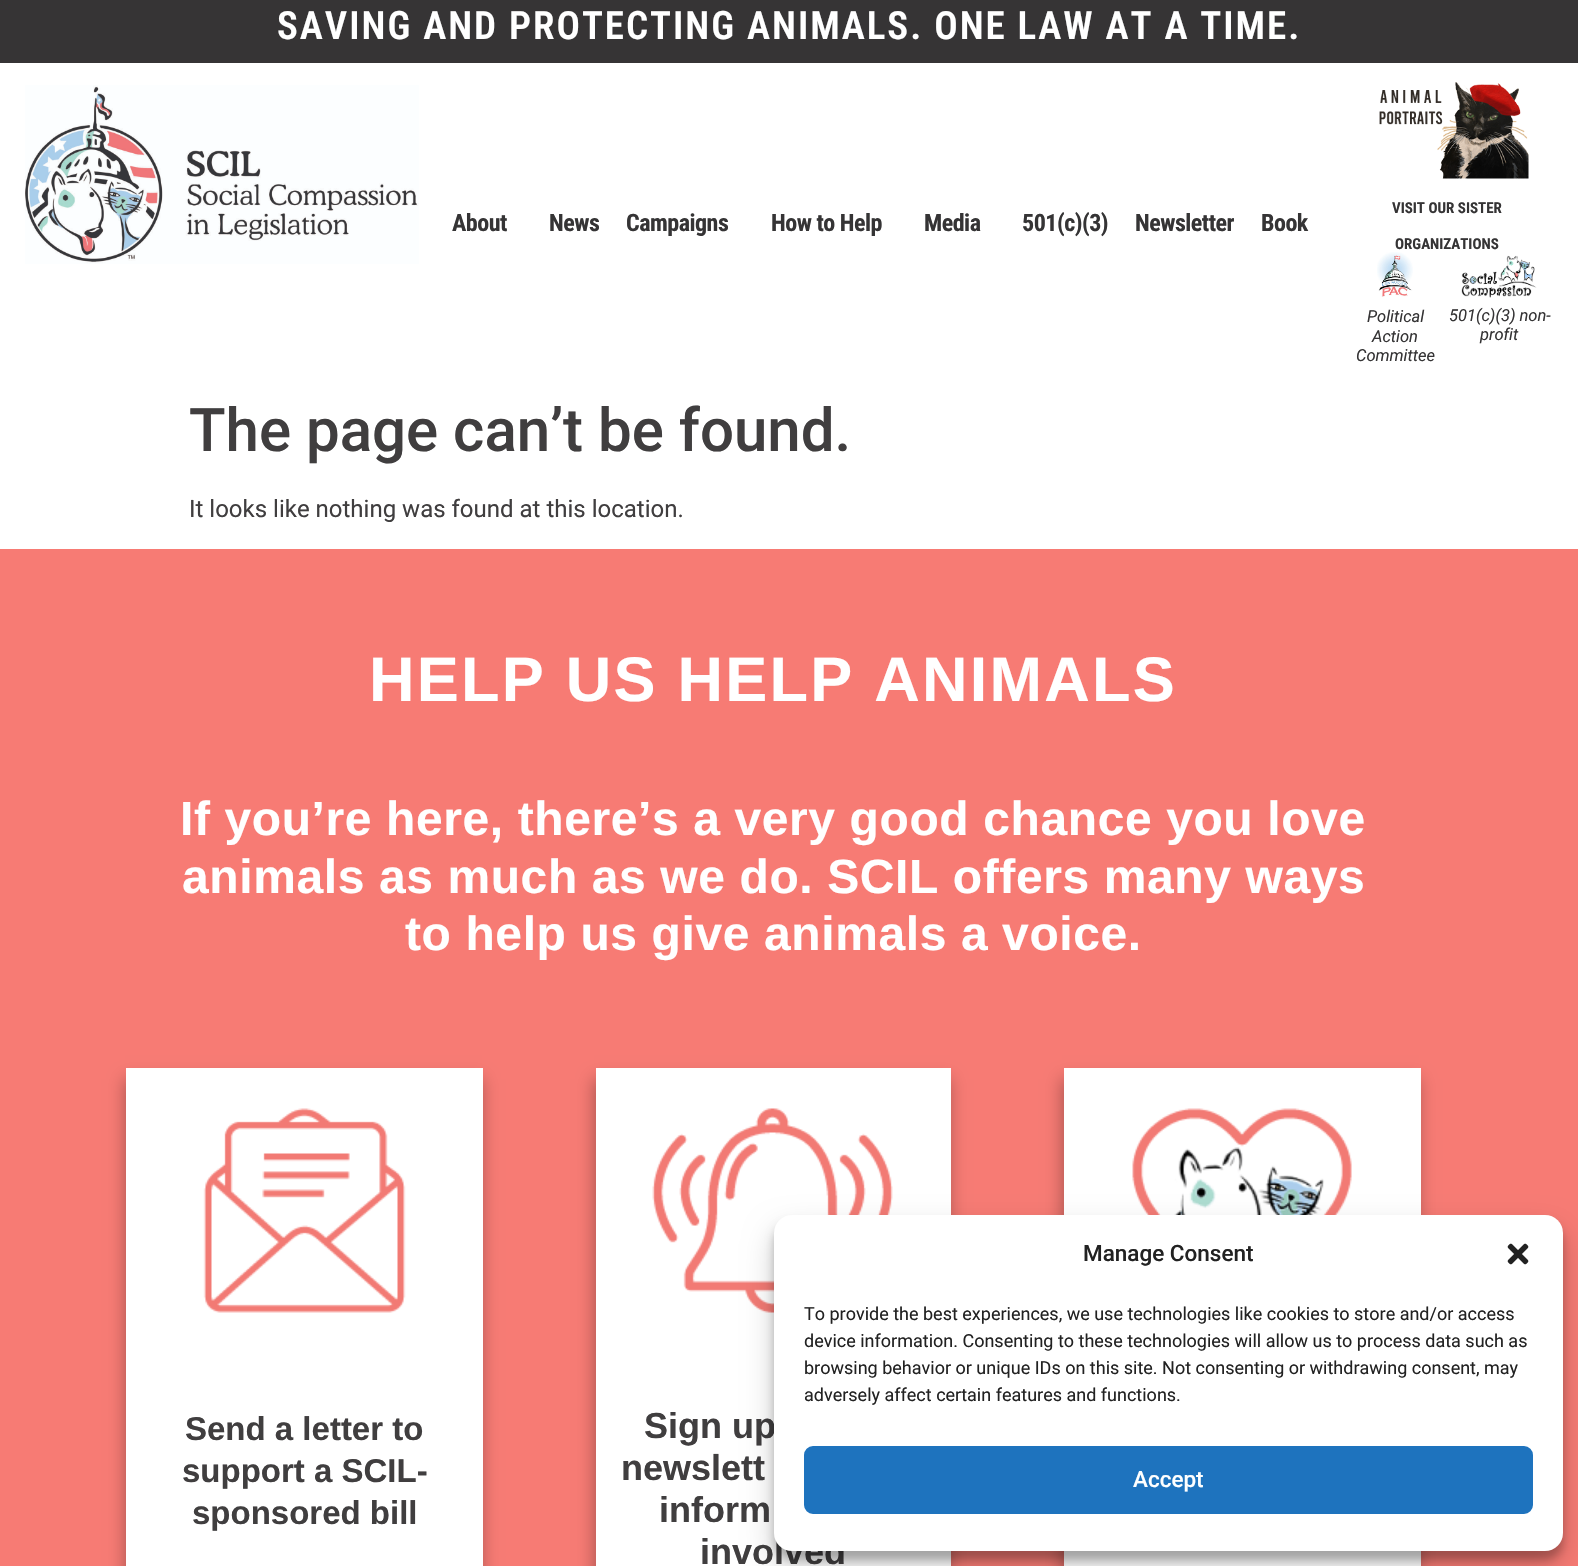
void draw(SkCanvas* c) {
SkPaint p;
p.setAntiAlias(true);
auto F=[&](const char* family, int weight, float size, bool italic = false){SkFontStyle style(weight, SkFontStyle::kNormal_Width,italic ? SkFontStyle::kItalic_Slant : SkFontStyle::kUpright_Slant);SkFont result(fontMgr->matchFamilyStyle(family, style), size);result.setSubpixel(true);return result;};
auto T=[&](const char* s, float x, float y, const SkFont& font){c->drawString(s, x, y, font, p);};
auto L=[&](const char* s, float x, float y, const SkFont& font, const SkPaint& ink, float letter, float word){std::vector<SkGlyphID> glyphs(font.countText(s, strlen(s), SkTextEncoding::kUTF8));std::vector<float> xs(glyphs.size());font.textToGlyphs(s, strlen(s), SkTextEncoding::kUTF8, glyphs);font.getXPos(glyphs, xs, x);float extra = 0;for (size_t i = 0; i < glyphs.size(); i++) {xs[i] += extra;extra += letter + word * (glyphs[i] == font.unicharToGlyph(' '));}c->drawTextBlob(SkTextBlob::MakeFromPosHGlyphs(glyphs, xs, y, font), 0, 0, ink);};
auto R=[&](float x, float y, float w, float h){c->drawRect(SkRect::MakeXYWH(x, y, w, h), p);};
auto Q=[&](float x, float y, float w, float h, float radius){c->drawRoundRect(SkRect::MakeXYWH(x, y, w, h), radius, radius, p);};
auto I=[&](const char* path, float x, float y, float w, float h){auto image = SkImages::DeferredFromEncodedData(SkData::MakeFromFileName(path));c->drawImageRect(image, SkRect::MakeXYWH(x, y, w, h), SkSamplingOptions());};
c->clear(0xffffffff);
p.setColor(0xff363435);
R(0,0,1578,63);
auto f1 = F("Roboto Condensed",600,39);
p.setColor(0xffffffff);
L("SAVING AND PROTECTING ANIMALS. ONE LAW AT A TIME.",277,39,f1,p,1.95,0);
I("1.png",25,85,394,179);
auto f2 = F("Roboto Condensed",700,24);
p.setColor(0xff353435);
L("About",452,231,f2,p,-.5,0);
L("News",549,231,f2,p,-.5,0);
L("Campaigns",626,231,f2,p,-.5,0);
L("How to Help",771,231,f2,p,-.5,0);
L("Media",924,231,f2,p,-.5,0);
L("501(c)(3)",1022,231,f2,p,-.5,0);
L("Newsletter",1135,231,f2,p,-.5,0);
L("Book",1261,231,f2,p,-.5,0);
I("2.png",1379,82,150,97);
auto f3 = F("Roboto Condensed",700,15);
T("VISIT OUR SISTER",1392,213,f3);
T("ORGANIZATIONS",1395,249,f3);
I("3.png",1377,252,36,45);
auto f4 = F("Roboto",400,16.5,true);
T("Political",1367,322,f4);
T("Action",1372,342,f4);
T("Committee",1356,361,f4);
I("4.png",1461,255,76,43);
T("501(c)(3) non-",1449,321,f4);
T("profit",1480,340,f4);
auto f5 = F("Roboto",500,60);
p.setColor(0xff403e3f);
T("The page can’t be found.",189,451,f5);
auto f6 = F("Roboto",400,24);
T("It looks like nothing was found at this location.",189,517,f6);
p.setColor(0xfff77b74);
R(0,549,1578,1017);
auto f7 = F("Liberation Sans",700,63);
p.setColor(0xffffffff);
L("HELP US HELP ANIMALS",369,701,f7,p,2.25,0);
auto f8 = F("Liberation Sans",700,48);
L("If you’re here, there’s a very good chance you love",180,835,f8,p,.6,0);
L("animals as much as we do. SCIL offers many ways",182,893,f8,p,.6,0);
L("to help us give animals a voice.",405,950,f8,p,.6,0);
p.setColor(0x4d000000);
p.setMaskFilter(SkMaskFilter::MakeBlur(kNormal_SkBlurStyle, 8));
c->drawRect(SkRect::MakeXYWH(125,1079,357,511),p);
p.setMaskFilter(nullptr);
p.setColor(0xffffffff);
R(126,1068,357,498);
I("5.png",203,1108,203,205);
auto f9 = F("Liberation Sans",700,33);
p.setColor(0xff403e3f);
T("Send a letter to",185,1440,f9);
T("support a SCIL-",182,1482,f9);
T("sponsored bill",192,1524,f9);
p.setColor(0x4d000000);
p.setMaskFilter(SkMaskFilter::MakeBlur(kNormal_SkBlurStyle, 8));
c->drawRect(SkRect::MakeXYWH(594,1079,356,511),p);
p.setMaskFilter(nullptr);
p.setColor(0xffffffff);
R(596,1068,355,498);
I("6.png",652,1108,241,205);
auto f10 = F("Liberation Sans",700,36);
p.setColor(0xff403e3f);
T("Sign up",644,1438,f10);
T("newslett",621,1480,f10);
T("inform",659,1522,f10);
T("involved",700,1564,f10);
p.setColor(0x4d000000);
p.setMaskFilter(SkMaskFilter::MakeBlur(kNormal_SkBlurStyle, 8));
c->drawRect(SkRect::MakeXYWH(1062,1079,357,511),p);
p.setMaskFilter(nullptr);
p.setColor(0xffffffff);
R(1064,1068,357,498);
I("7.png",1132,1108,220,107);
p.setColor(0x3b000000);
p.setMaskFilter(SkMaskFilter::MakeBlur(kNormal_SkBlurStyle, 4.5));
c->drawRoundRect(SkRect::MakeXYWH(774,1224,789,336),18,18,p);
p.setMaskFilter(nullptr);
p.setColor(0x30000000);
p.setMaskFilter(SkMaskFilter::MakeBlur(kNormal_SkBlurStyle, 15));
c->drawRoundRect(SkRect::MakeXYWH(774,1230,789,336),18,18,p);
p.setMaskFilter(nullptr);
p.setColor(0xffffffff);
Q(774,1215,789,336,18);
auto f11 = F("Roboto",500,22.5);
p.setColor(0xff222222);
T("Manage Consent",1083,1261,f11);
I("8.png",1507,1243,22,22);
auto f12 = F("Roboto",400,18);
T("To provide the best experiences, we use technologies like cookies to store and/or access",804,1320,f12);
T("device information. Consenting to these technologies will allow us to process data such as",804,1347,f12);
T("browsing behavior or unique IDs on this site. Not consenting or withdrawing consent, may",804,1374,f12);
T("adversely affect certain features and functions.",804,1401,f12);
p.setColor(0xff1e73be);
c->drawRoundRect(SkRect::MakeXYWH(805,1447,727,66),8,8,p);
p.setStroke(true);
p.setStrokeWidth(2);
c->drawRoundRect(SkRect::MakeXYWH(805,1447,727,66),8,8,p);
p.setStroke(false);
p.setColor(0xffffffff);
T("Accept",1133,1487,f11);
}
